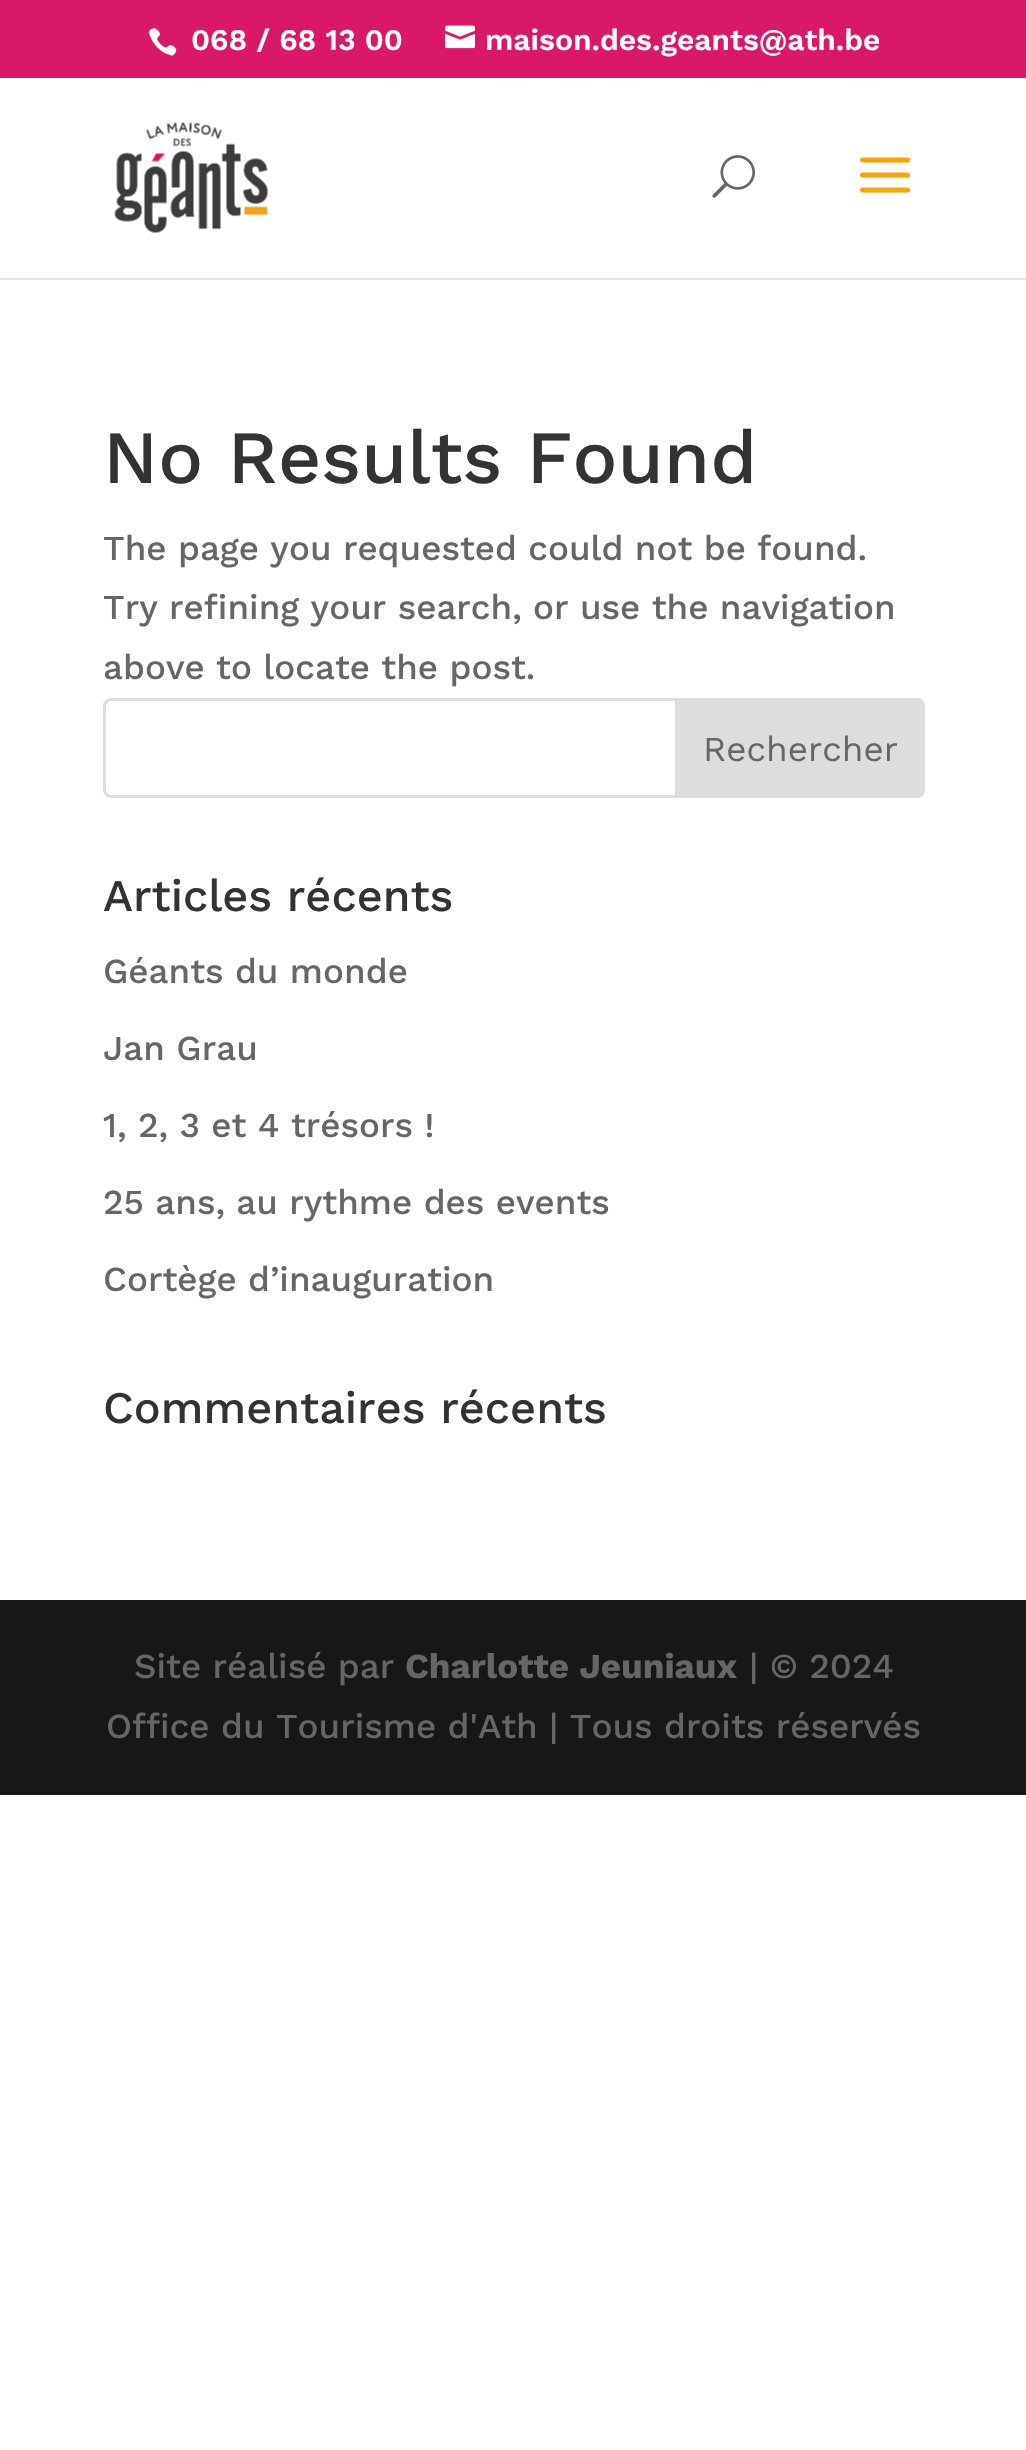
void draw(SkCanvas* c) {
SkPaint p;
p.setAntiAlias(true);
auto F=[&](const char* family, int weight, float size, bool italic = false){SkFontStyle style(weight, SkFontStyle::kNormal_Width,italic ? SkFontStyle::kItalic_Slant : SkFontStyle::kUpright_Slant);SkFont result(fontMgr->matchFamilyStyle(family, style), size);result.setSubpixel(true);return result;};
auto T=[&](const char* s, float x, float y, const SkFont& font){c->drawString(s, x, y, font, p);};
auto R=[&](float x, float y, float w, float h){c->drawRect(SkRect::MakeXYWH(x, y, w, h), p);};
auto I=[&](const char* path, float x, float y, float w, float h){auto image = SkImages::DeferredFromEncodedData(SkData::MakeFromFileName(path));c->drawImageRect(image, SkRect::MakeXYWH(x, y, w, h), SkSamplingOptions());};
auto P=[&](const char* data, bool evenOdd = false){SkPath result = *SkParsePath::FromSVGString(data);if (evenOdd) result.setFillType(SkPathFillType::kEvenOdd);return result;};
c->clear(0xffffffff);
p.setColor(0xffd91869);
R(0,0,1026,78);
I("1.png",148,28,29,28);
auto f1 = F("Work Sans",600,30);
p.setColor(0xffffffff);
T("068 / 68 13 00",191,50,f1);
I("2.png",445,25,30,24);
T("maison.des.geants@ath.be",485,50,f1);
p.setColor(0xffe5e5e5);
c->drawPath(P("M0 278v2h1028v-200v198z"),p);
I("3.png",114,122,154,111);
I("4.png",712,155,43,43);
I("5.png",860,157,50,36);
auto f2 = F("Work Sans",500,75);
p.setColor(0xff333333);
T("No Results Found",103,483,f2);
auto f3 = F("Work Sans",500,35);
p.setColor(0xff666666);
T("The page you requested could not be found.",103,560,f3);
T("Try refining your search, or use the navigation",103,619,f3);
T("above to locate the post.",103,679,f3);
p.setStroke(true);
p.setStrokeWidth(3);
p.setColor(0xffdddddd);
c->drawRoundRect(SkRect::MakeXYWH(104.5,699.5,819,97),6.5,6.5,p);
p.setStroke(false);
c->drawPath(P("M676.5 699.5h240.5c3.5 0 6.5 3 6.5 6.5v84c0 3.5-3 6.5-6.5 6.5h-240.5z"),p);
p.setStroke(true);
c->drawPath(P("M676.5 699.5h240.5c3.5 0 6.5 3 6.5 6.5v84c0 3.5-3 6.5-6.5 6.5h-240.5z"),p);
auto f4 = F("Work Sans",400,35);
p.setStroke(false);
p.setColor(0xff666666);
T("Rechercher",703,761,f4);
auto f5 = F("Work Sans",500,45);
p.setColor(0xff333333);
T("Articles récents",103,911,f5);
p.setColor(0xff666666);
T("Géants du monde",103,983,f3);
T("Jan Grau",103,1060,f3);
T("1, 2, 3 et 4 trésors !",103,1137,f3);
T("25 ans, au rythme des events",103,1214,f3);
T("Cortège d’inauguration",103,1291,f3);
p.setColor(0xff333333);
T("Commentaires récents",103,1423,f5);
p.setColor(0xff171717);
R(0,1600,1026,195);
p.setColor(0xff666666);
T("Site réalisé par",134,1678,f3);
auto f6 = F("Work Sans",700,35);
T("Charlotte Jeuniaux",405,1678,f6);
T("| © 2024",749,1678,f3);
T("Office du Tourisme d'Ath | Tous droits réservés",106,1738,f3);
}
